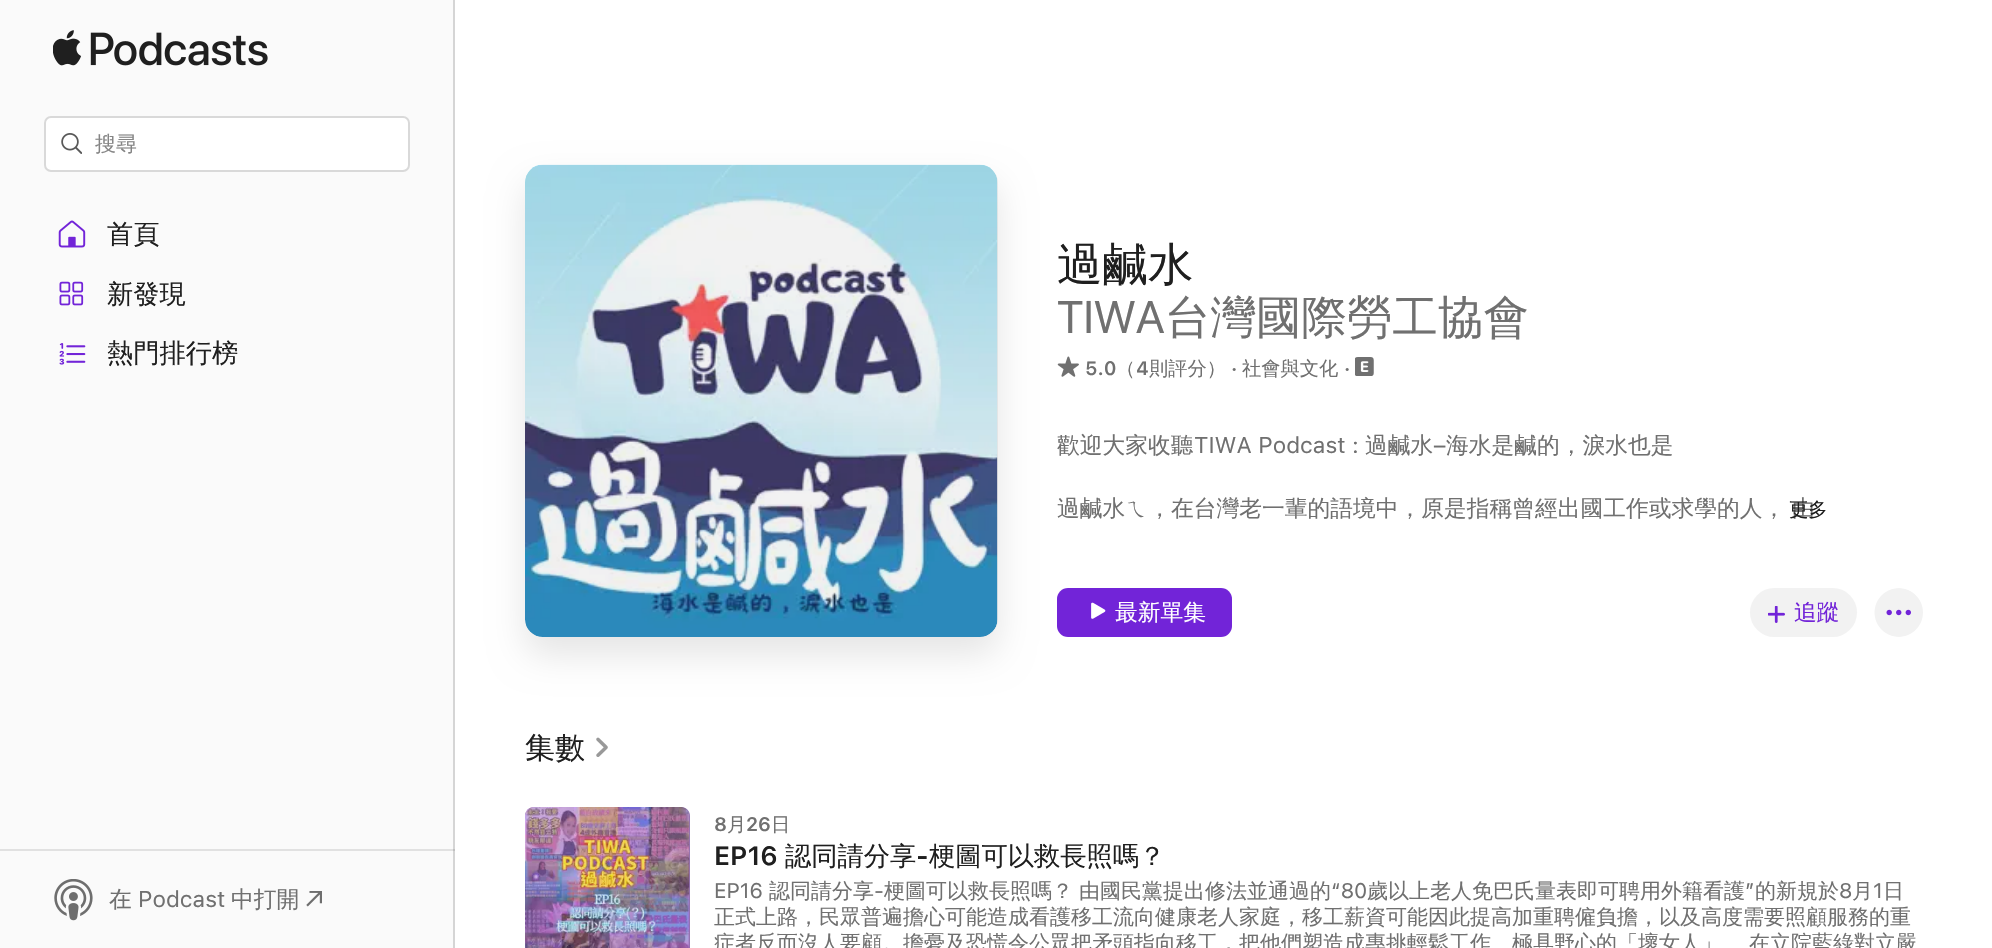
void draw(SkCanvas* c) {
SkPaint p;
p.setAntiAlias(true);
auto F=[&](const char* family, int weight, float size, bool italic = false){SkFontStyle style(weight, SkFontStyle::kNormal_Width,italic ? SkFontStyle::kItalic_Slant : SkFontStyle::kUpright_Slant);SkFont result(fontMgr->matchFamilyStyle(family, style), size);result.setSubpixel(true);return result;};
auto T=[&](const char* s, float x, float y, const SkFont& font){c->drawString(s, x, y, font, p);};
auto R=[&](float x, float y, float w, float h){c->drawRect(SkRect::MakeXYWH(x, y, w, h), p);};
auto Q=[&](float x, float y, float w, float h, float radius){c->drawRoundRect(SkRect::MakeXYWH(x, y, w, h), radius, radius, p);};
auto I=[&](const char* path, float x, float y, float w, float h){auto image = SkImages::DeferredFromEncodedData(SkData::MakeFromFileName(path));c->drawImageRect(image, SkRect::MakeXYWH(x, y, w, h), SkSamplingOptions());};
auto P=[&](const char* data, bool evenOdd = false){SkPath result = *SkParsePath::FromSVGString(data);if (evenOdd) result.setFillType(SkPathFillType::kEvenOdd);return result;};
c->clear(0xffffffff);
p.setColor(0xfffafafa);
R(0,0,453,948);
p.setColor(0xffe1e1e1);
R(0,849,455,2);
p.setColor(0xffd5d5d5);
R(453,0,2,948);
p.setColor(0xffc0c0c0);
R(453,849,2,2);
I("1.png",53,30,215,36);
p.setColor(0xffffffff);
c->drawRoundRect(SkRect::MakeXYWH(45,117,364,54),6,6,p);
p.setStroke(true);
p.setStrokeWidth(2);
p.setColor(0xffd9d9d9);
c->drawRoundRect(SkRect::MakeXYWH(45,117,364,54),6,6,p);
I("2.png",61,133,21,21);
auto f1 = F("WenQuanYi Zen Hei",500,21);
p.setStroke(false);
p.setColor(0xff858585);
T("搜尋",95,151,f1);
I("3.png",58,220,28,28);
auto f2 = F("WenQuanYi Zen Hei",500,26.25);
p.setColor(0xff1f1f1f);
T("首頁",107,243,f2);
I("4.png",59,281,25,25);
T("新發現",107,303,f2);
I("5.png",59,343,27,22);
T("熱門排行榜",107,362,f2);
I("6.png",54,879,39,42);
auto f3 = F("WenQuanYi Zen Hei",500,22.75);
p.setColor(0xff707070);
T("在",109,907,f3);
auto f4 = F("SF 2",400,22.75);
T("Podcast",138,907,f4);
T("中打開",231,907,f3);
I("7.png",306,891,16,16);
p.setColor(0x1a000000);
p.setMaskFilter(SkMaskFilter::MakeBlur(kNormal_SkBlurStyle, 17.5));
c->drawRoundRect(SkRect::MakeXYWH(525,182,473,473),18,18,p);
p.setMaskFilter(nullptr);
I("8.png",525,164,473,473);
p.setColor(0x1a808080);
c->drawPath(P("M543 165h437c10 0 18 8 18 18v436c0 10-8 18-18 18h-437c-10 0-18-8-18-18v-436c0-10 8-18 18-18z"),p);
auto f5 = F("WenQuanYi Zen Hei",500,45.5);
p.setColor(0xff1f1f1f);
T("過鹹水",1057,280,f5);
auto f6 = F("SF",400,45.5);
p.setColor(0xff707070);
T("TIWA",1057,333,f6);
T("台灣國際勞工協會",1165,333,f5);
I("9.png",1057,356,22,21);
auto f7 = F("SF",600,19.25);
T("5.0",1085,375,f7);
auto f8 = F("WenQuanYi Zen Hei",500,19.25);
T("（",1116,375,f8);
T("4",1136,375,f7);
T("則評分）",1149,375,f8);
T("·",1231,375,f7);
T("社會與文化",1242,375,f8);
T("·",1344,375,f7);
I("10.png",1355,357,19,19);
T("歡迎大家收聽",1057,453,f3);
T("TIWA Podcast :",1194,453,f4);
T("過鹹水",1365,453,f3);
T("–",1433,453,f4);
T("海水是鹹的，淚水也是",1446,453,f3);
T("過鹹水ㄟ，在台灣老一輩的語境中，原是指稱曾經出國工作或求學的人， 由",1057,516,f3);
p.setColor(0xff1f1f1f);
T("更多",1789,516,f8);
p.setColor(0xff7224d8);
Q(1057,588,175,49,11);
I("11.png",1091,602,15,17);
p.setColor(0xffffffff);
T("最新單集",1115,620,f3);
p.setColor(0xfff2f2f2);
Q(1750,588,107,49,24.5);
I("12.png",1768,606,17,17);
p.setColor(0xff7224d8);
T("追蹤",1794,620,f3);
I("13.png",1874,588,49,49);
auto f9 = F("WenQuanYi Zen Hei",500,30);
p.setColor(0xff1f1f1f);
T("集數",525,758,f9);
I("14.png",596,737,12,20);
p.setColor(0xff966fb5);
c->drawPath(P("M534 807h147c5 0 9 4 9 9v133h-165v-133c0-5 4-9 9-9z"),p);
I("15.png",525,807,165,141);
p.setColor(0x1a808080);
c->drawPath(P("M534 807h147c5 0 9 4 9 9v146c0 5-4 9-9 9h-147c-5 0-9-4-9-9v-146c0-5 4-9 9-9z"),p);
p.setColor(0xff707070);
T("8",714,831,f7);
T("月",727,831,f8);
T("26",746,831,f7);
T("日",771,831,f8);
auto f10 = F("SF",600,26.25);
p.setColor(0xff1f1f1f);
T("EP16",714,865,f10);
T("認同請分享",785,865,f2);
T("-",916,865,f10);
T("梗圖可以救長照嗎？",929,865,f2);
auto f11 = F("SF 2",400,21);
p.setColor(0xff707070);
T("EP16",714,898,f11);
T("認同請分享",769,898,f1);
T("-",874,898,f11);
T("梗圖可以救長照嗎？",884,898,f1);
T("由國民黨提出修法並通過的",1079,898,f1);
T("“80",1331,898,f11);
T("歲以上老人免巴氏量表即可聘用外籍看護",1367,898,f1);
T("”",1745,898,f11);
T("的新規於",1755,898,f1);
T("8",1839,898,f11);
T("月",1852,898,f1);
T("1",1873,898,f11);
T("日",1883,898,f1);
T("正式上路，民眾普遍擔心可能造成看護移工流向健康老人家庭，移工薪資可能因此提高加重聘僱負擔，以及高度需要照顧服務的重",714,924,f1);
T("症者反而沒人要顧。擔憂及恐慌令公眾把矛頭指向移工，把他們塑造成專挑輕鬆工作、極具野心的「壞女人」",714,950,f1);
T("在立院藍綠對立嚴",1749,950,f1);
}
